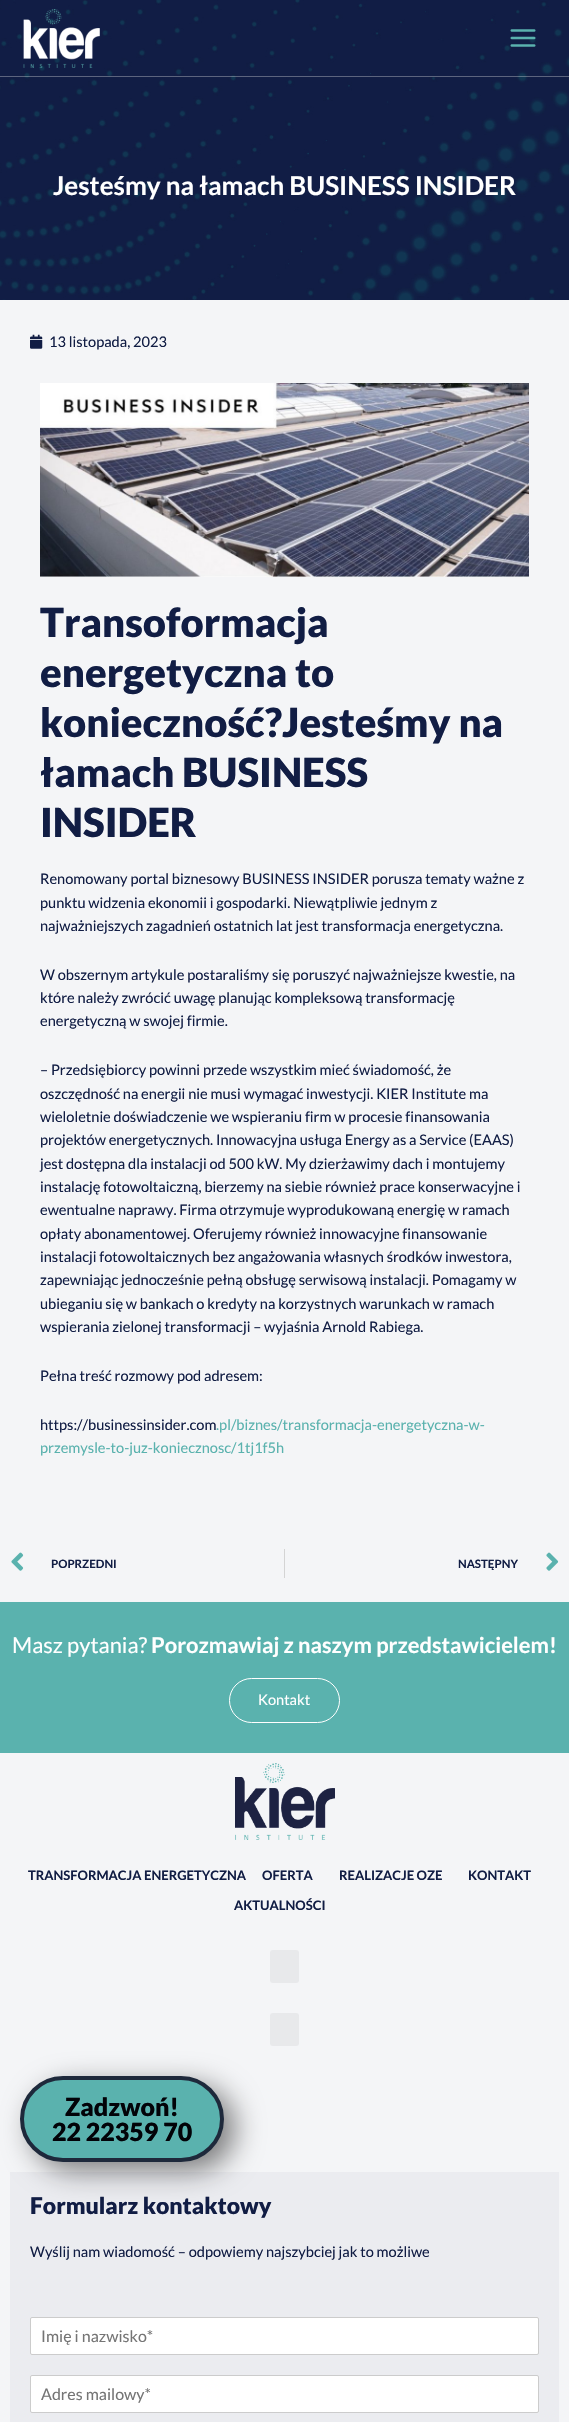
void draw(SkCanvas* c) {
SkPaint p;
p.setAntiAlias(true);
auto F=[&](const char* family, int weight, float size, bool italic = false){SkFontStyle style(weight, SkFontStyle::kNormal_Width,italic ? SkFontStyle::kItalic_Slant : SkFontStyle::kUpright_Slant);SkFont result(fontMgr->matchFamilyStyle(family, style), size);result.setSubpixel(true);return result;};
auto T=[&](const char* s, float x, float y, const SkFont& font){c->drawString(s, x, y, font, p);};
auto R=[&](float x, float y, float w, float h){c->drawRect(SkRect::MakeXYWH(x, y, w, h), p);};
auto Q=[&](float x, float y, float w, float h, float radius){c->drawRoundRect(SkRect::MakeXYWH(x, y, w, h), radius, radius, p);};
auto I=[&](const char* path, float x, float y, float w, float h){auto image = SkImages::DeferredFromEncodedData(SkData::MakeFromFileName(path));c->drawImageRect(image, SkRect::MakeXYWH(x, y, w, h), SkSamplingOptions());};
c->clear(0xfff4f5f7);
I("3.png",0,0,569,300);
p.setColor(0x57ebebeb);
R(0,76,569,1);
I("1.png",23,9,77,59);
I("2.png",510,29,26,18);
auto f1 = F("Lato",700,26);
p.setColor(0xffffffff);
T("Jesteśmy na łamach BUSINESS INSIDER",53,195,f1);
I("4.png",30,334,13,15);
auto f2 = F("Lato",400,14.6);
p.setColor(0xff111d44);
T("13 listopada, 2023",49,347,f2);
I("5.png",40,383,489,194);
auto f3 = F("Lato",900,40);
T("Transoformacja",40,637,f3);
T("energetyczna to",40,687,f3);
T("konieczność?Jesteśmy na",40,737,f3);
T("łamach BUSINESS",40,787,f3);
T("INSIDER",40,837,f3);
T("Renomowany portal biznesowy BUSINESS INSIDER porusza tematy ważne z",40,884,f2);
T("punktu widzenia ekonomii i gospodarki. Niewątpliwie jednym z",40,908,f2);
T("najważniejszych zagadnień ostatnich lat jest transformacja energetyczna.",40,931,f2);
T("W obszernym artykule postaraliśmy się poruszyć najważniejsze kwestie, na",40,980,f2);
T("które należy zwrócić uwagę planując kompleksową transformację",40,1003,f2);
T("energetyczną w swojej firmie.",40,1026,f2);
T("– Przedsiębiorcy powinni przede wszystkim mieć świadomość, że",40,1075,f2);
T("oszczędność na energii nie musi wymagać inwestycji. KIER Institute ma",40,1099,f2);
T("wieloletnie doświadczenie we wspieraniu firm w procesie finansowania",40,1122,f2);
T("projektów energetycznych. Innowacyjna usługa Energy as a Service (EAAS)",40,1145,f2);
T("jest dostępna dla instalacji od 500 kW. My dzierżawimy dach i montujemy",40,1169,f2);
T("instalację fotowoltaiczną, bierzemy na siebie również prace konserwacyjne i",40,1192,f2);
T("ewentualne naprawy. Firma otrzymuje wyprodukowaną energię w ramach",40,1215,f2);
T("opłaty abonamentowej. Oferujemy również innowacyjne finansowanie",40,1239,f2);
T("instalacji fotowoltaicznych bez angażowania własnych środków inwestora,",40,1262,f2);
T("zapewniając jednocześnie pełną obsługę serwisową instalacji. Pomagamy w",40,1285,f2);
T("ubieganiu się w bankach o kredyty na korzystnych warunkach w ramach",40,1309,f2);
T("wspierania zielonej transformacji – wyjaśnia Arnold Rabiega.",40,1332,f2);
T("Pełna treść rozmowy pod adresem:",40,1381,f2);
T("https://businessinsider.com",40,1430,f2);
p.setColor(0xff5ab2ae);
T(".pl/biznes/transformacja-energetyczna-w-",216,1430,f2);
T("przemysle-to-juz-koniecznosc/1tj1f5h",40,1453,f2);
I("6.png",11,1552,13,19);
auto f4 = F("Lato",700,11.5);
p.setColor(0xff111d44);
T("POPRZEDNI",51,1568,f4);
p.setColor(0xffd4d4d4);
R(284,1549,1,29);
p.setColor(0xff111d44);
T("NASTĘPNY",458,1568,f4);
I("7.png",546,1552,13,19);
p.setColor(0xff5ab2ae);
R(0,1602,569,151);
auto f5 = F("Lato",400,21.9);
p.setColor(0xffffffff);
T("Masz pytania?",12,1653,f5);
auto f6 = F("Lato",700,21.9);
T("Porozmawiaj z naszym przedstawicielem!",151,1653,f6);
p.setStroke(true);
p.setStrokeWidth(1);
c->drawRoundRect(SkRect::MakeXYWH(229.5,1678.5,110,44),22,22,p);
p.setStroke(false);
T("Kontakt",258,1705,f2);
I("8.png",235,1763,100,77);
auto f7 = F("Lato",700,13);
p.setColor(0xff111d44);
T("TRANSFORMACJA ENERGETYCZNA",28,1880,f7);
T("OFERTA",262,1880,f7);
T("REALIZACJE OZE",339,1880,f7);
T("KONTAKT",468,1880,f7);
T("AKTUALNOŚCI",234,1910,f7);
p.setColor(0xffe8e9eb);
Q(270,1950,29,33,3);
Q(270,2013,29,33,3);
p.setColor(0x80000000);
p.setMaskFilter(SkMaskFilter::MakeBlur(kNormal_SkBlurStyle, 14.5));
c->drawRoundRect(SkRect::MakeXYWH(31,2085,204,86),43,43,p);
p.setMaskFilter(nullptr);
p.setColor(0xff5ab2ae);
c->drawRoundRect(SkRect::MakeXYWH(22,2078,200,82),41,41,p);
p.setStroke(true);
p.setStrokeWidth(4);
p.setColor(0xff1e293b);
c->drawRoundRect(SkRect::MakeXYWH(22,2078,200,82),41,41,p);
auto f8 = F("Lato",900,25);
p.setStroke(false);
p.setColor(0xff020308);
T("Zadzwoń!",65,2116,f8);
T("22 22359 70",52,2141,f8);
p.setColor(0x0a111d44);
R(10,2172,549,250);
auto f9 = F("Lato",900,23);
p.setColor(0xff111d44);
T("Formularz kontaktowy",30,2214,f9);
T("Wyślij nam wiadomość – odpowiemy najszybciej jak to możliwe",30,2257,f2);
p.setColor(0xffffffff);
c->drawRoundRect(SkRect::MakeXYWH(30.5,2317.5,508,37),1.5,1.5,p);
p.setStroke(true);
p.setStrokeWidth(1);
p.setColor(0xffcccccc);
c->drawRoundRect(SkRect::MakeXYWH(30.5,2317.5,508,37),1.5,1.5,p);
auto f10 = F("Lato",400,16);
p.setStroke(false);
p.setColor(0xff757575);
T("Imię i nazwisko*",41,2342,f10);
p.setColor(0xffffffff);
c->drawRoundRect(SkRect::MakeXYWH(30.5,2375.5,508,37),1.5,1.5,p);
p.setStroke(true);
p.setColor(0xffcccccc);
c->drawRoundRect(SkRect::MakeXYWH(30.5,2375.5,508,37),1.5,1.5,p);
p.setStroke(false);
p.setColor(0xff757575);
T("Adres mailowy*",41,2400,f10);
}
